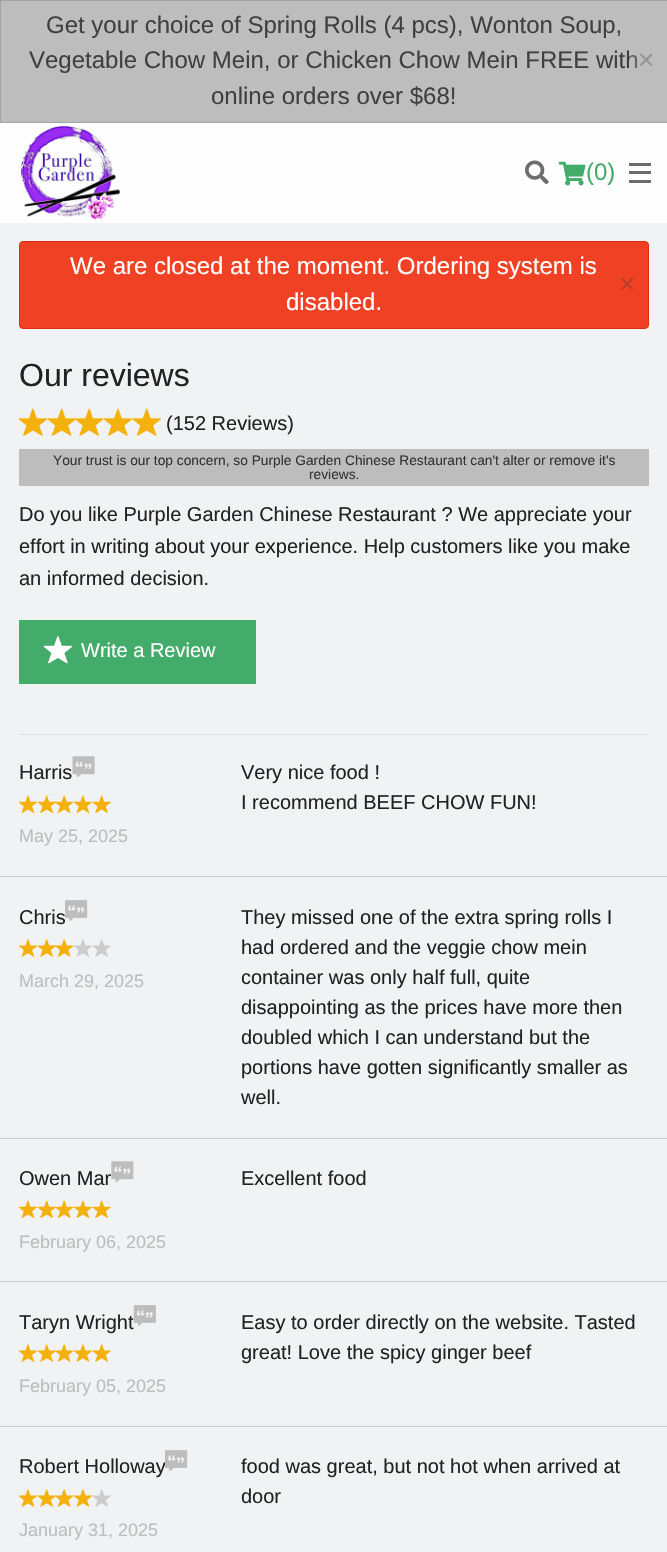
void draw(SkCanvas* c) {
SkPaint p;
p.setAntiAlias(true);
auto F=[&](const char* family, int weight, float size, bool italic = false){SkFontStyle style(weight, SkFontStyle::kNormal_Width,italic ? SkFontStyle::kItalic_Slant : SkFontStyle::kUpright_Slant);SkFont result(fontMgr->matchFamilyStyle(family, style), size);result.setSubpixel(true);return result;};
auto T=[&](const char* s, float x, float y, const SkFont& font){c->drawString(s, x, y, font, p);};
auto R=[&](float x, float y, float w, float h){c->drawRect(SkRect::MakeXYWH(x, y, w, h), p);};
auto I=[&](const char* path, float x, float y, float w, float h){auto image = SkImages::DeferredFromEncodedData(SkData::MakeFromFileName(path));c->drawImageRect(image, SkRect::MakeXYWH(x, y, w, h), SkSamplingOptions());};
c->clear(0xfff1f2f3);
p.setColor(0xffbdbdbd);
c->drawRect(SkRect::MakeXYWH(.5,.5,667,122),p);
p.setStroke(true);
p.setStrokeWidth(1);
p.setColor(0xffa3a3a3);
c->drawRect(SkRect::MakeXYWH(.5,.5,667,122),p);
auto f1 = F("Liberation Sans",400,24);
p.setStroke(false);
p.setColor(0xff404040);
T("Get your choice of Spring Rolls (4 pcs), Wonton Soup,",46,33,f1);
T("Vegetable Chow Mein, or Chicken Chow Mein FREE with",29,68,f1);
p.setColor(0x4dbdbdbd);
R(630,55,7,13);
auto f2 = F("Liberation Sans",400,28);
p.setColor(0xff949494);
T("×",638,69,f2);
p.setColor(0xff404040);
T("online orders over $68!",211,104,f1);
p.setColor(0xfffefefe);
R(0,123,667,100);
I("1.png",21,126,99,94);
I("2.png",525,160,24,25);
I("3.png",558,161,28,25);
p.setColor(0xff43ac6a);
T("(0)",586,180,f1);
p.setColor(0xff6d6d6d);
R(629,180,22,3);
R(629,171,22,3);
R(629,163,22,3);
p.setColor(0xfff04124);
c->drawRoundRect(SkRect::MakeXYWH(19.5,241.5,629,87),3.5,3.5,p);
p.setStroke(true);
p.setColor(0xffde2d0f);
c->drawRoundRect(SkRect::MakeXYWH(19.5,241.5,629,87),3.5,3.5,p);
p.setStroke(false);
p.setColor(0xffffffff);
T("We are closed at the moment. Ordering system is",70,274,f1);
p.setColor(0xffb73d29);
T("×",619,293,f2);
p.setColor(0xffffffff);
T("disabled.",286,310,f1);
auto f3 = F("Liberation Sans",400,32);
p.setColor(0xff222222);
T("Our reviews",19,386,f3);
I("4.png",18,408,29,28);
I("5.png",47,408,29,28);
I("6.png",75,408,29,28);
I("7.png",103,408,29,28);
I("5.png",132,408,29,28);
auto f4 = F("Liberation Sans",400,20);
T("(152 Reviews)",166,430,f4);
p.setColor(0xffbdbdbd);
R(19,449,630,37);
auto f5 = F("Liberation Sans",400,13.75);
p.setColor(0xff333333);
T("Your trust is our top concern, so Purple Garden Chinese Restaurant can't alter or remove it's",53,465,f5);
T("reviews.",309,479,f5);
p.setColor(0xff222222);
T("Do you like Purple Garden Chinese Restaurant ? We appreciate your",19,521,f4);
T("effort in writing about your experience. Help customers like you make",19,553,f4);
T("an informed decision.",19,585,f4);
p.setColor(0xff43ac6a);
R(19,620,237,64);
I("8.png",43,636,29,28);
p.setColor(0xffffffff);
T("Write a Review",81,657,f4);
p.setColor(0xffdddddd);
R(19,734,630,1);
p.setColor(0xffcccccc);
R(0,876,667,1);
p.setColor(0xff222222);
T("Harris",19,779,f4);
I("9.png",72,756,23,21);
I("10.png",18,795,19,18);
I("11.png",37,795,19,18);
I("12.png",55,795,19,18);
I("13.png",73,795,19,18);
I("11.png",92,795,19,18);
auto f6 = F("Liberation Sans",400,18);
p.setColor(0xffbdbdbd);
T("May 25, 2025",19,842,f6);
p.setColor(0xff222222);
T("Very nice food !",241,779,f4);
T("I recommend BEEF CHOW FUN!",241,809,f4);
p.setColor(0xffcccccc);
R(0,1138,667,1);
p.setColor(0xff222222);
T("Chris",19,924,f4);
I("14.png",65,900,23,21);
I("15.png",18,939,19,18);
I("16.png",37,939,19,18);
I("17.png",55,939,19,18);
I("18.png",74,939,18,18);
I("19.png",92,939,19,18);
p.setColor(0xffbdbdbd);
T("March 29, 2025",19,987,f6);
p.setColor(0xff222222);
T("They missed one of the extra spring rolls I",241,924,f4);
T("had ordered and the veggie chow mein",241,954,f4);
T("container was only half full, quite",241,984,f4);
T("disappointing as the prices have more then",241,1014,f4);
T("doubled which I can understand but the",241,1044,f4);
T("portions have gotten significantly smaller as",241,1074,f4);
T("well.",241,1104,f4);
p.setColor(0xffcccccc);
R(0,1281,667,1);
p.setColor(0xff222222);
T("Owen Mar",19,1185,f4);
I("20.png",111,1161,23,21);
I("10.png",18,1200,19,18);
I("11.png",37,1200,19,18);
I("12.png",55,1200,19,18);
I("13.png",73,1200,19,18);
I("11.png",92,1200,19,18);
p.setColor(0xffbdbdbd);
T("February 06, 2025",19,1248,f6);
p.setColor(0xff222222);
T("Excellent food",241,1185,f4);
p.setColor(0xffcccccc);
R(0,1426,667,1);
p.setColor(0xff222222);
T("Taryn Wright",19,1329,f4);
I("21.png",133,1305,23,21);
I("15.png",18,1344,19,18);
I("16.png",37,1344,19,18);
I("17.png",55,1344,19,18);
I("22.png",73,1344,19,18);
I("16.png",92,1344,19,18);
p.setColor(0xffbdbdbd);
T("February 05, 2025",19,1392,f6);
p.setColor(0xff222222);
T("Easy to order directly on the website. Tasted",241,1329,f4);
T("great! Love the spicy ginger beef",241,1359,f4);
T("Robert Holloway",19,1473,f4);
I("14.png",165,1450,23,21);
I("15.png",18,1489,19,18);
I("16.png",37,1489,19,18);
I("17.png",55,1489,19,18);
I("22.png",73,1489,19,18);
I("19.png",92,1489,19,18);
p.setColor(0xffbdbdbd);
T("January 31, 2025",19,1536,f6);
p.setColor(0xff222222);
T("food was great, but not hot when arrived at",241,1473,f4);
T("door",241,1503,f4);
}
